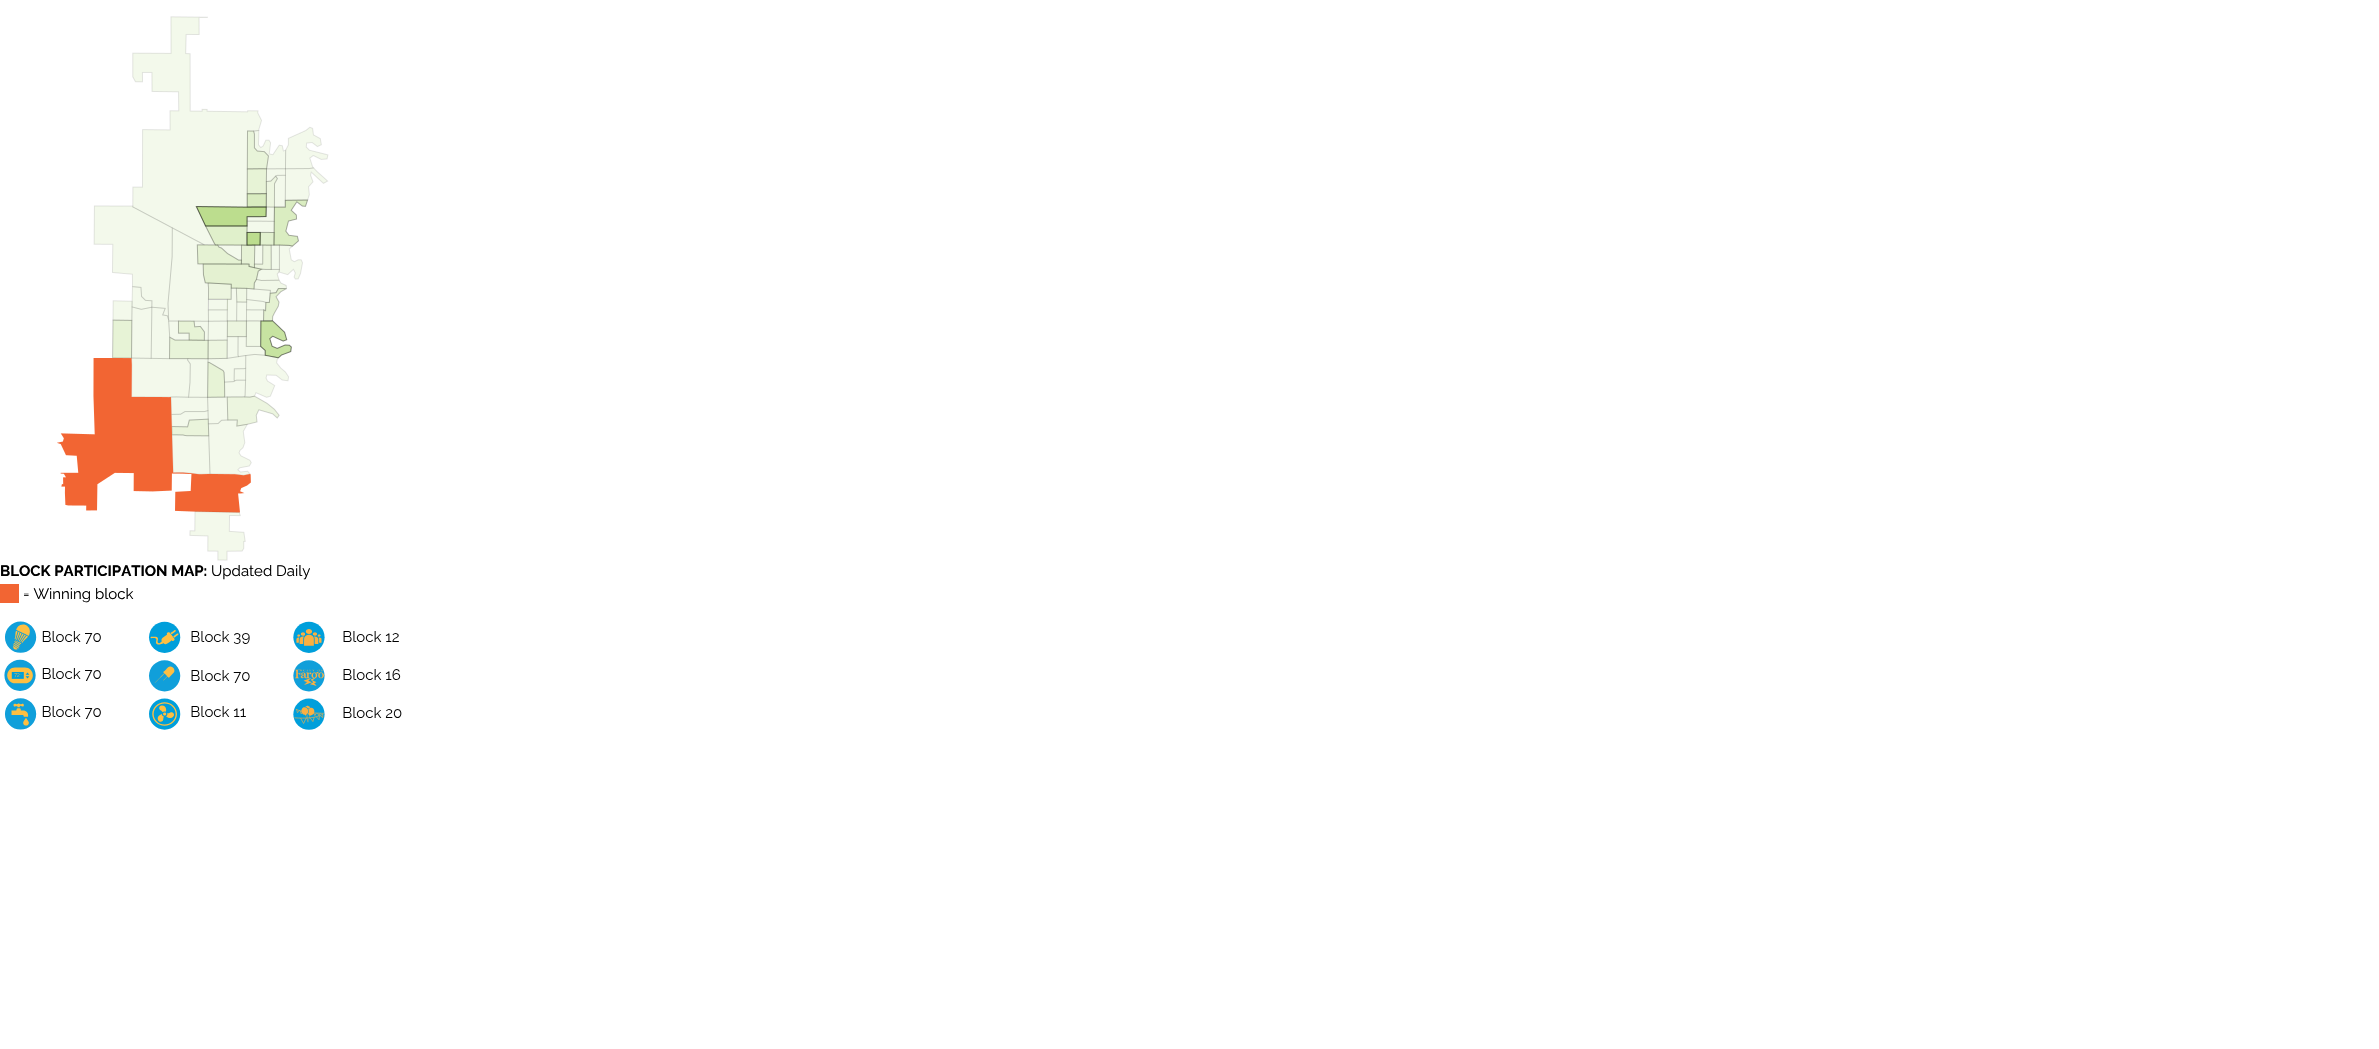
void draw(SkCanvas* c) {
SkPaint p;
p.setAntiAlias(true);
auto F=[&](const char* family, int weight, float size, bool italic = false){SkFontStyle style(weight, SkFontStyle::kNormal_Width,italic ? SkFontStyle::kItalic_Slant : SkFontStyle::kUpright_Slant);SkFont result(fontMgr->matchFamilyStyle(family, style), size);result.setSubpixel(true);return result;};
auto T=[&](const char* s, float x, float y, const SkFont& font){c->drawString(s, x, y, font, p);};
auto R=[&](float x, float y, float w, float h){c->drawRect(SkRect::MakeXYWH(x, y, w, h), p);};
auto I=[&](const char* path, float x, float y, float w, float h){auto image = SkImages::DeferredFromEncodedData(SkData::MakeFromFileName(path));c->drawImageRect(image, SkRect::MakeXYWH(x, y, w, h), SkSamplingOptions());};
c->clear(0xffffffff);
I("1.png",57,16,272,545);
auto f1 = F("Raleway",700,15);
p.setColor(0xff000000);
T("BLOCK PARTICIPATION MAP:",0,576,f1);
auto f2 = F("Raleway",400,15);
T("Updated Daily",211,576,f2);
p.setColor(0xfff26533);
R(0,584,19,19);
p.setColor(0xff000000);
T("= Winning block",23,599,f2);
I("2.png",4,621,398,109);
}
